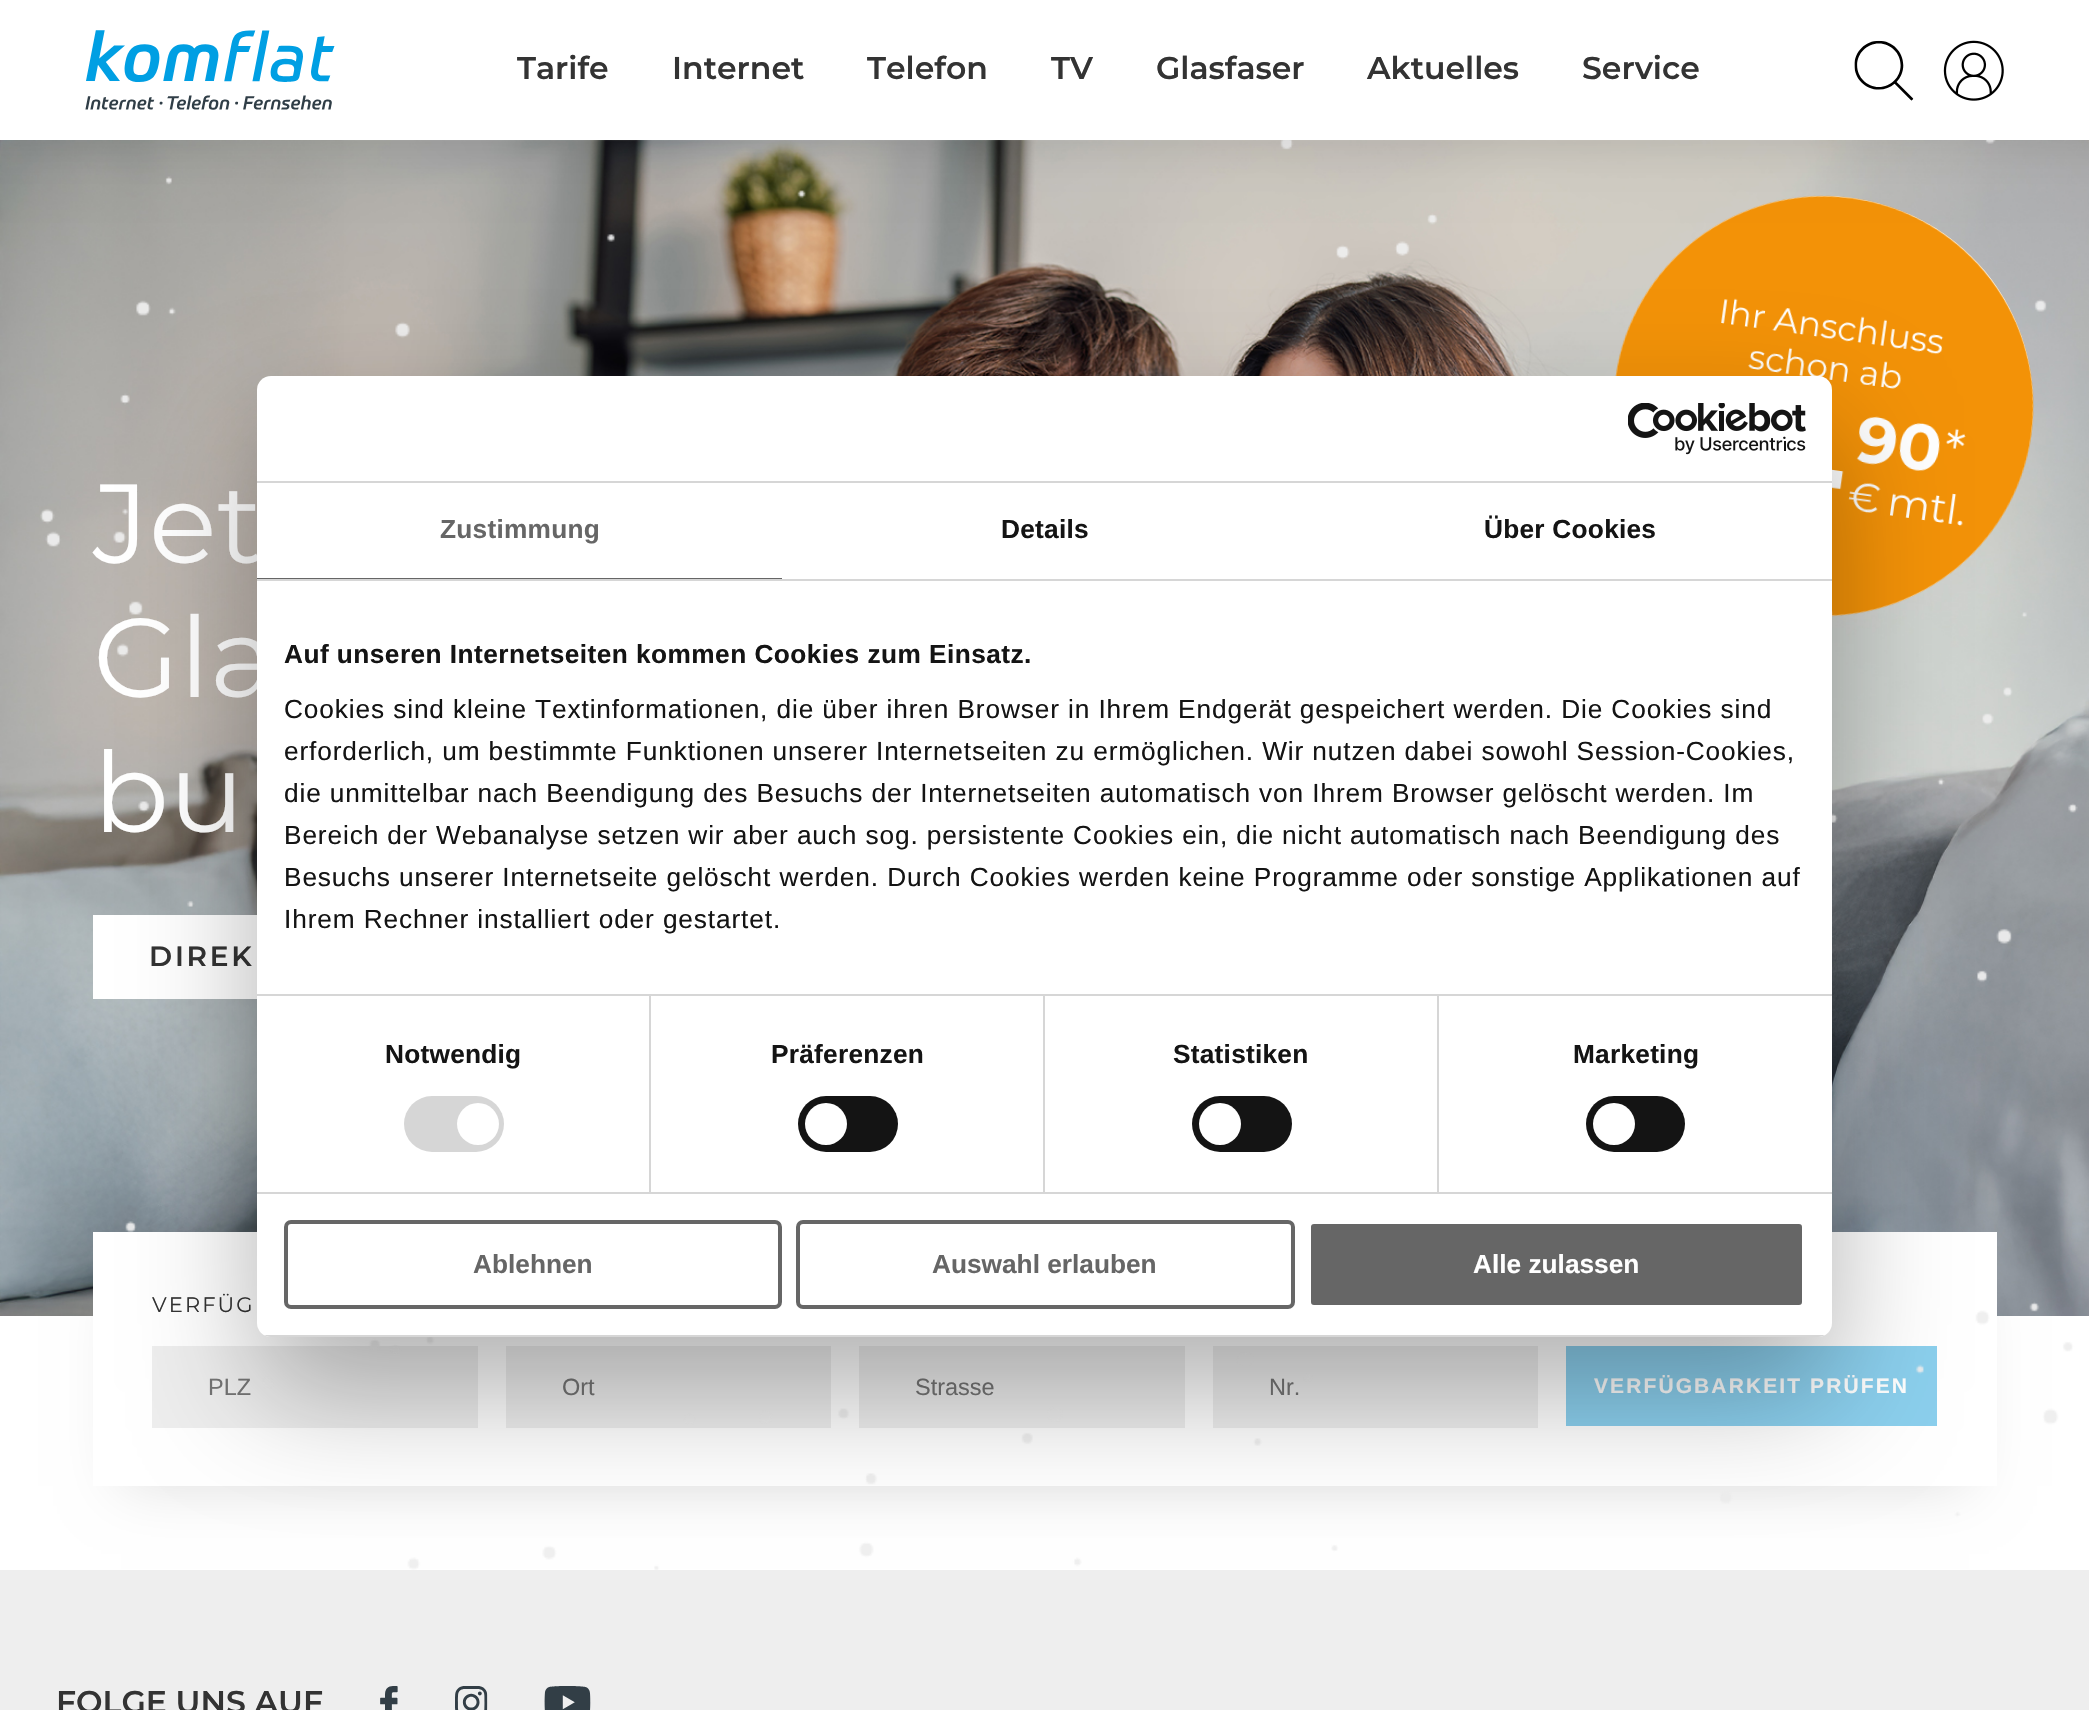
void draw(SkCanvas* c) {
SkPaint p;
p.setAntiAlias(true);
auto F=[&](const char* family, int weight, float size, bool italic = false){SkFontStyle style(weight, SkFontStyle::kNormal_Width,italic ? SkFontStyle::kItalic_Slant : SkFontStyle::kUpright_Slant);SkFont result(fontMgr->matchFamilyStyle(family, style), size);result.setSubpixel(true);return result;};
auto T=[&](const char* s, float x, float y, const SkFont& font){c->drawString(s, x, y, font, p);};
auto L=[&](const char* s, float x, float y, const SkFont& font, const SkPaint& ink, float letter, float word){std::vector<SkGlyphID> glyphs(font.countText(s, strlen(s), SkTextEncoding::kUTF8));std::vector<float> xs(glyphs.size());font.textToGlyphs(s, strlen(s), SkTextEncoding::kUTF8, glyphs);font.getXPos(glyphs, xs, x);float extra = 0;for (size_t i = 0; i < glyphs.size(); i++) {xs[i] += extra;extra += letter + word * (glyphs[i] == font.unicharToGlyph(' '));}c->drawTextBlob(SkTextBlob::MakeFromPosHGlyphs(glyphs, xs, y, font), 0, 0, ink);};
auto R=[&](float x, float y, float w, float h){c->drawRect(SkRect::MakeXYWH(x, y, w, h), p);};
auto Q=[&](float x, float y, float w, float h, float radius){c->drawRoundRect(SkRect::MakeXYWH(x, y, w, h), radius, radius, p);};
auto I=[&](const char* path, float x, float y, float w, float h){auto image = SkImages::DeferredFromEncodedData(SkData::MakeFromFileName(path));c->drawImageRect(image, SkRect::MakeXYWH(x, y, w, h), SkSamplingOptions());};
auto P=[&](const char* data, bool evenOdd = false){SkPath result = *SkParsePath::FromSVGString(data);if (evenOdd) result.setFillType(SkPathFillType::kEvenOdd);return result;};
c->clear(0xffffffff);
I("4.png",0,140,2089,1176);
p.setColor(0xffffffff);
c->drawPath(P("M1853 198c33 5 65 17 93 37c98 70 116 208 41 302c-22 28-53 51-86 64c-29 11-59 16-90 15l-17-2l-33-8c-22-6-42-16-60-29c-121-87-115-271 13-350c41-25 91-36 139-29z"),p);
I("5.png",1615,195,419,422);
auto f1 = F("Montserrat",100,112);
T("Jet",93,563,f1);
T("Gla",93,697,f1);
T("bu",93,832,f1);
R(93,915,164,84);
auto f2 = F("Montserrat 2",100,28);
p.setColor(0xff333333);
L("DIREK",149,966,f2,p,2.75,0);
p.setColor(0xffeeeeee);
R(0,1570,2089,140);
p.setColor(0x1f000000);
p.setMaskFilter(SkMaskFilter::MakeBlur(kNormal_SkBlurStyle, 28));
c->drawRect(SkRect::MakeXYWH(121,1288,1848,198),p);
p.setMaskFilter(nullptr);
p.setColor(0xffffffff);
R(93,1232,1904,254);
auto f3 = F("Montserrat",100,21);
p.setColor(0xff333333);
L("VERFÜG",152,1312,f3,p,2.1,0);
p.setColor(0xffeeeeee);
R(152,1346,326,82);
auto f4 = F("Liberation Sans",400,23.5);
p.setColor(0xff757575);
T("PLZ",208,1395,f4);
p.setColor(0xffeeeeee);
R(506,1346,325,82);
p.setColor(0xff757575);
T("Ort",562,1395,f4);
p.setColor(0xffeeeeee);
R(859,1346,326,82);
p.setColor(0xff757575);
T("Strasse",915,1395,f4);
p.setColor(0xffeeeeee);
R(1213,1346,325,82);
p.setColor(0xff757575);
T("Nr.",1269,1395,f4);
p.setColor(0xff8bcfed);
R(1566,1346,371,80);
auto f5 = F("Liberation Sans",700,21);
p.setColor(0xffffffff);
L("VERFÜGBARKEIT PRÜFEN",1594,1393,f5,p,2.1,0);
I("7.png",40,140,2038,1430);
p.setColor(0x1f000000);
p.setMaskFilter(SkMaskFilter::MakeBlur(kNormal_SkBlurStyle, 28));
c->drawRect(SkRect::MakeXYWH(-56,-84,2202,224),p);
p.setMaskFilter(nullptr);
p.setColor(0xffffffff);
R(0,0,2089,140);
I("1.png",85,30,250,80);
auto f6 = F("Montserrat 2",100,31.5);
p.setColor(0xff333333);
T("Tarife",517,79,f6);
T("Internet",672,79,f6);
T("Telefon",867,79,f6);
T("TV",1051,79,f6);
T("Glasfaser",1156,79,f6);
T("Aktuelles",1367,79,f6);
T("Service",1582,79,f6);
I("2.png",1854,40,60,61);
I("3.png",1943,40,61,61);
p.setColor(0x4d000000);
p.setMaskFilter(SkMaskFilter::MakeBlur(kNormal_SkBlurStyle, 59.5));
c->drawRoundRect(SkRect::MakeXYWH(257,432,1575,961),14,14,p);
p.setMaskFilter(nullptr);
p.setColor(0xffffffff);
Q(257,376,1575,961,14);
p.setColor(0xffd6d6d6);
R(257,481,1575,2);
I("6.png",1628,403,178,52);
R(257,579,1575,2);
p.setColor(0xff666666);
R(257,578,525,1);
auto f7 = F("Liberation Sans",700,26.25);
L("Zustimmung",440,538,f7,p,.25,0);
p.setColor(0xff141414);
L("Details",1001,538,f7,p,.25,0);
L("Über Cookies",1484,538,f7,p,.25,0);
p.setColor(0xffd6d6d6);
R(257,994,1575,2);
p.setColor(0xff141414);
L("Auf unseren Internetseiten kommen Cookies zum Einsatz.",284,663,f7,p,.45,0);
auto f8 = F("Liberation Sans",400,26.25);
L("Cookies sind kleine Textinformationen, die über ihren Browser in Ihrem Endgerät gespeichert werden. Die Cookies sind",284,718,f8,p,.88,0);
L("erforderlich, um bestimmte Funktionen unserer Internetseiten zu ermöglichen. Wir nutzen dabei sowohl Session-Cookies,",284,760,f8,p,.88,0);
L("die unmittelbar nach Beendigung des Besuchs der Internetseiten automatisch von Ihrem Browser gelöscht werden. Im",284,802,f8,p,.88,0);
L("Bereich der Webanalyse setzen wir aber auch sog. persistente Cookies ein, die nicht automatisch nach Beendigung des",284,844,f8,p,.88,0);
L("Besuchs unserer Internetseite gelöscht werden. Durch Cookies werden keine Programme oder sonstige Applikationen auf",284,886,f8,p,.88,0);
L("Ihrem Rechner installiert oder gestartet.",284,928,f8,p,.88,0);
p.setColor(0xffd6d6d6);
R(257,1192,1575,2);
R(649,996,2,196);
p.setColor(0xff141414);
L("Notwendig",385,1063,f7,p,.25,0);
p.setColor(0xffd6d6d6);
Q(404,1096,100,56,28);
p.setColor(0xffffffff);
c->drawCircle(478,1124,21,p);
p.setColor(0xffd6d6d6);
R(1043,996,2,196);
p.setColor(0xff141414);
L("Präferenzen",771,1063,f7,p,.25,0);
Q(798,1096,100,56,28);
p.setColor(0xffffffff);
c->drawCircle(826,1124,21,p);
p.setColor(0xffd6d6d6);
R(1437,996,2,196);
p.setColor(0xff141414);
L("Statistiken",1173,1063,f7,p,.25,0);
Q(1192,1096,100,56,28);
p.setColor(0xffffffff);
c->drawCircle(1220,1124,21,p);
p.setColor(0xff141414);
L("Marketing",1573,1063,f7,p,.25,0);
Q(1586,1096,99,56,28);
p.setColor(0xffffffff);
c->drawCircle(1614,1124,21,p);
c->save();
c->clipPath(P("M271 376h1547c7.5 0 14 6.5 14 14v933c0 7.5-6.5 14-14 14h-1547c-7.5 0-14-6.5-14-14v-933c0-7.5 6.5-14 14-14z"),true);
p.setColor(0xffd6d6d6);
R(257,1335,1575,2);
c->restore();
p.setStroke(true);
p.setStrokeWidth(4);
p.setColor(0xff666666);
c->drawRoundRect(SkRect::MakeXYWH(286,1222,494,85),5,5,p);
p.setStroke(false);
T("Ablehnen",473,1273,f7);
p.setStroke(true);
c->drawRoundRect(SkRect::MakeXYWH(798,1222,495,85),5,5,p);
p.setStroke(false);
T("Auswahl erlauben",932,1273,f7);
c->drawRoundRect(SkRect::MakeXYWH(1309,1222,495,85),5,5,p);
p.setStroke(true);
p.setColor(0xffffffff);
c->drawRoundRect(SkRect::MakeXYWH(1309,1222,495,85),5,5,p);
p.setStroke(false);
T("Alle zulassen",1473,1273,f7);
p.setColor(0xff333333);
T("FOLGE UNS AUF",56,1713,f6);
I("8.png",380,1686,18,24);
I("9.png",455,1686,33,24);
I("10.png",544,1686,47,24);
}
